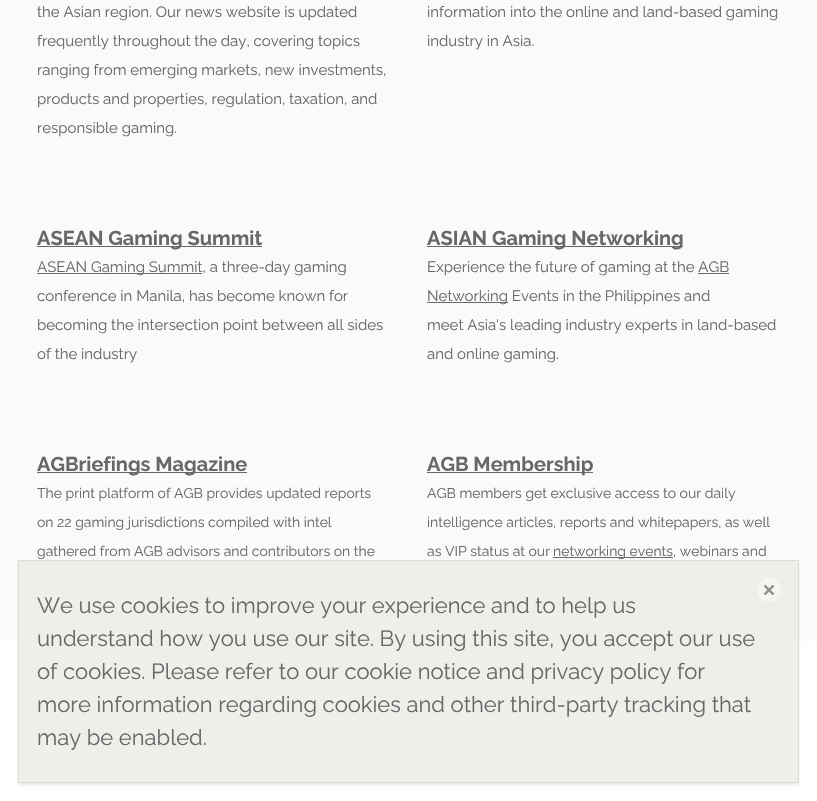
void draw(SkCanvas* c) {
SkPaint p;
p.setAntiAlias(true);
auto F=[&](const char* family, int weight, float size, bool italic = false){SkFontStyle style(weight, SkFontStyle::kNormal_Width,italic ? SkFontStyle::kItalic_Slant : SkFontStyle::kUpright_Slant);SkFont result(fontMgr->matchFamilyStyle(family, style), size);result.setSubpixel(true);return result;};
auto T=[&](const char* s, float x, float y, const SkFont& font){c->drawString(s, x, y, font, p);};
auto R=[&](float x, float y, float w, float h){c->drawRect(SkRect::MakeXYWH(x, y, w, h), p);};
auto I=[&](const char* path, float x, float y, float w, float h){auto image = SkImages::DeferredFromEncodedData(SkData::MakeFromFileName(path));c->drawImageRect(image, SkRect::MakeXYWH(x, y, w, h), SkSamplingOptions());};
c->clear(0xffffffff);
p.setColor(0xfffafafa);
R(0,0,817,641);
auto f1 = F("Raleway",400,15);
p.setColor(0xff686868);
T("the Asian region. Our news website is updated",37,17,f1);
T("frequently throughout the day, covering topics",37,46,f1);
T("ranging from emerging markets, new investments,",37,75,f1);
T("products and properties, regulation, taxation, and",37,104,f1);
T("responsible gaming.",37,133,f1);
R(37,246,225,1);
auto f2 = F("Raleway",700,20);
T("ASEAN Gaming Summit",37,245,f2);
R(37,273,165,1);
T("ASEAN Gaming Summit, a three-day gaming",37,272,f1);
T("conference in Manila, has become known for",37,301,f1);
T("becoming the intersection point between all sides",37,330,f1);
T("of the industry",37,359,f1);
R(37,472,210,1);
T("AGBriefings Magazine",37,471,f2);
auto f3 = F("Raleway",400,14);
T("The print platform of AGB provides updated reports",37,498,f3);
T("on 22 gaming jurisdictions compiled with intel",37,527,f3);
T("gathered from AGB advisors and contributors on the",37,556,f3);
T("information into the online and land-based gaming",427,17,f1);
T("industry in Asia.",427,46,f1);
R(427,246,256,1);
T("ASIAN Gaming Networking",427,245,f2);
T("Experience the future of gaming at the AGB",427,272,f1);
R(698,273,31,1);
R(427,302,81,1);
T("Networking Events in the Philippines and",427,301,f1);
T("meet Asia's leading industry experts in land-based",427,330,f1);
T("and online gaming.",427,359,f1);
R(427,472,166,1);
T("AGB Membership",427,471,f2);
T("AGB members get exclusive access to our daily",427,498,f3);
T("intelligence articles, reports and whitepapers, as well",427,527,f3);
T("as VIP status at our",427,556,f3);
R(553,557,120,1);
T("networking events, webinars and",553,556,f3);
p.setColor(0x1a241c15);
p.setMaskFilter(SkMaskFilter::MakeBlur(kNormal_SkBlurStyle, 1.5));
c->drawRect(SkRect::MakeXYWH(18,562,781,223),p);
p.setMaskFilter(nullptr);
p.setColor(0xffefeeea);
c->drawRect(SkRect::MakeXYWH(18.5,560.5,780,222),p);
p.setStroke(true);
p.setStrokeWidth(1);
p.setColor(0xffdedddc);
c->drawRect(SkRect::MakeXYWH(18.5,560.5,780,222),p);
I("1.png",757,578,24,24);
auto f4 = F("Raleway",400,22);
p.setStroke(false);
p.setColor(0xff686868);
T("We use cookies to improve your experience and to help us",37,613,f4);
T("understand how you use our site. By using this site, you accept our use",37,646,f4);
T("of cookies. Please refer to our cookie notice and privacy policy for",37,679,f4);
T("more information regarding cookies and other third-party tracking that",37,712,f4);
T("may be enabled.",37,745,f4);
}
